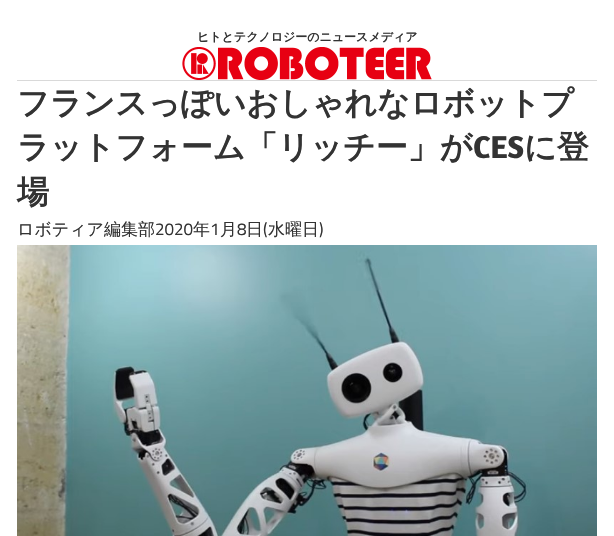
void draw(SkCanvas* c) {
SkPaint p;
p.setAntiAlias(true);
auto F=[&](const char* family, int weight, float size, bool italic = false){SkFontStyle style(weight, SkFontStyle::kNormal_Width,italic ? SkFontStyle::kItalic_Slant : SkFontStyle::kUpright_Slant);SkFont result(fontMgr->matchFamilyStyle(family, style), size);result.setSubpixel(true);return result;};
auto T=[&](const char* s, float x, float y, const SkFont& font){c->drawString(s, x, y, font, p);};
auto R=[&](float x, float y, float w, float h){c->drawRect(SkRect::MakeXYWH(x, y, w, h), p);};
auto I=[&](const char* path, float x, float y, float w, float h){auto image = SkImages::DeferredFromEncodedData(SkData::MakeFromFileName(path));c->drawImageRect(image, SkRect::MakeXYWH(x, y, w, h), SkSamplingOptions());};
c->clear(0xffffffff);
auto f1 = F("WenQuanYi Zen Hei",700,12);
p.setColor(0xff333333);
T("ヒトとテクノロジーのニュースメディア",197,41,f1);
I("1.png",182,47,250,33);
p.setColor(0xffd9d9d9);
R(17,80,580,1);
auto f2 = F("WenQuanYi Zen Hei",700,32);
p.setColor(0xff333333);
T("フランスっぽいおしゃれなロボットプ",17,114,f2);
T("ラットフォーム「リッチー」が",17,158,f2);
auto f3 = F("Amaranth",700,32);
T("CES",473,158,f3);
T("に登",524,158,f2);
T("場",17,203,f2);
auto f4 = F("WenQuanYi Zen Hei",500,17);
T("ロボティア編集部",17,235,f4);
auto f5 = F("Titillium Web",400,17);
T("2020",155,235,f5);
T("年",193,235,f4);
T("1",210,235,f5);
T("月",220,235,f4);
T("8",237,235,f5);
T("日",246,235,f4);
T("(",263,235,f5);
T("水曜日",268,235,f4);
T(")",319,235,f5);
I("2.png",17,245,580,291);
}
